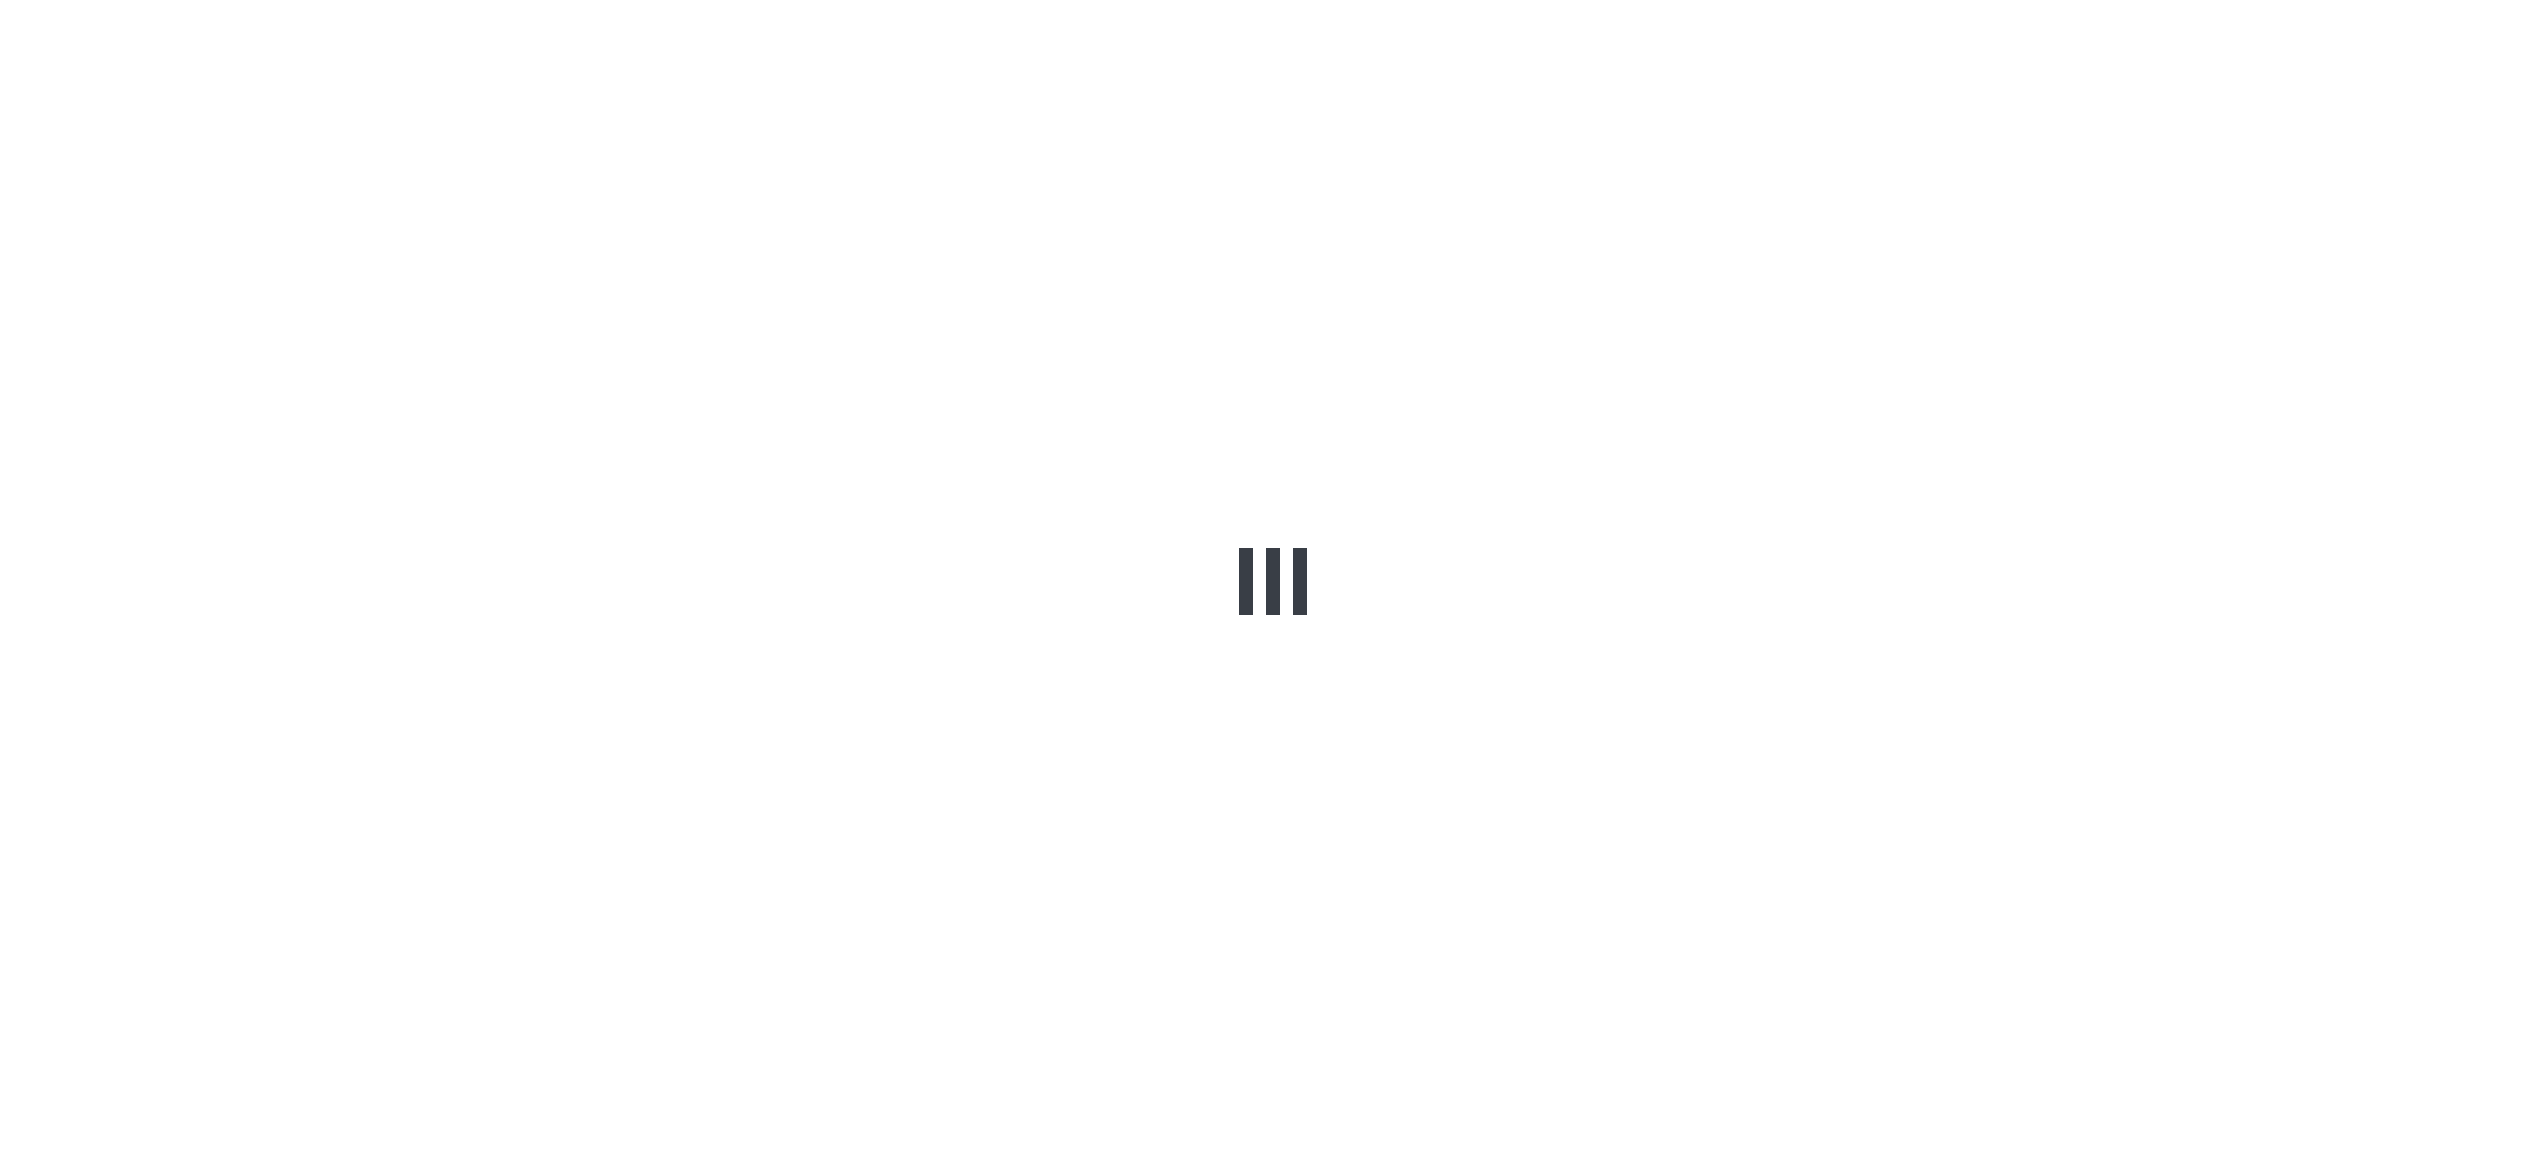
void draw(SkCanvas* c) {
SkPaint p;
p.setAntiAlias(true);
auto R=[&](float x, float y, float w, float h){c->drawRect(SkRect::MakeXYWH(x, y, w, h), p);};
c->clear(0xffffffff);
p.setColor(0xff393e46);
R(1293,548,14,67);
R(1266,548,14,67);
R(1239,548,14,67);
}
